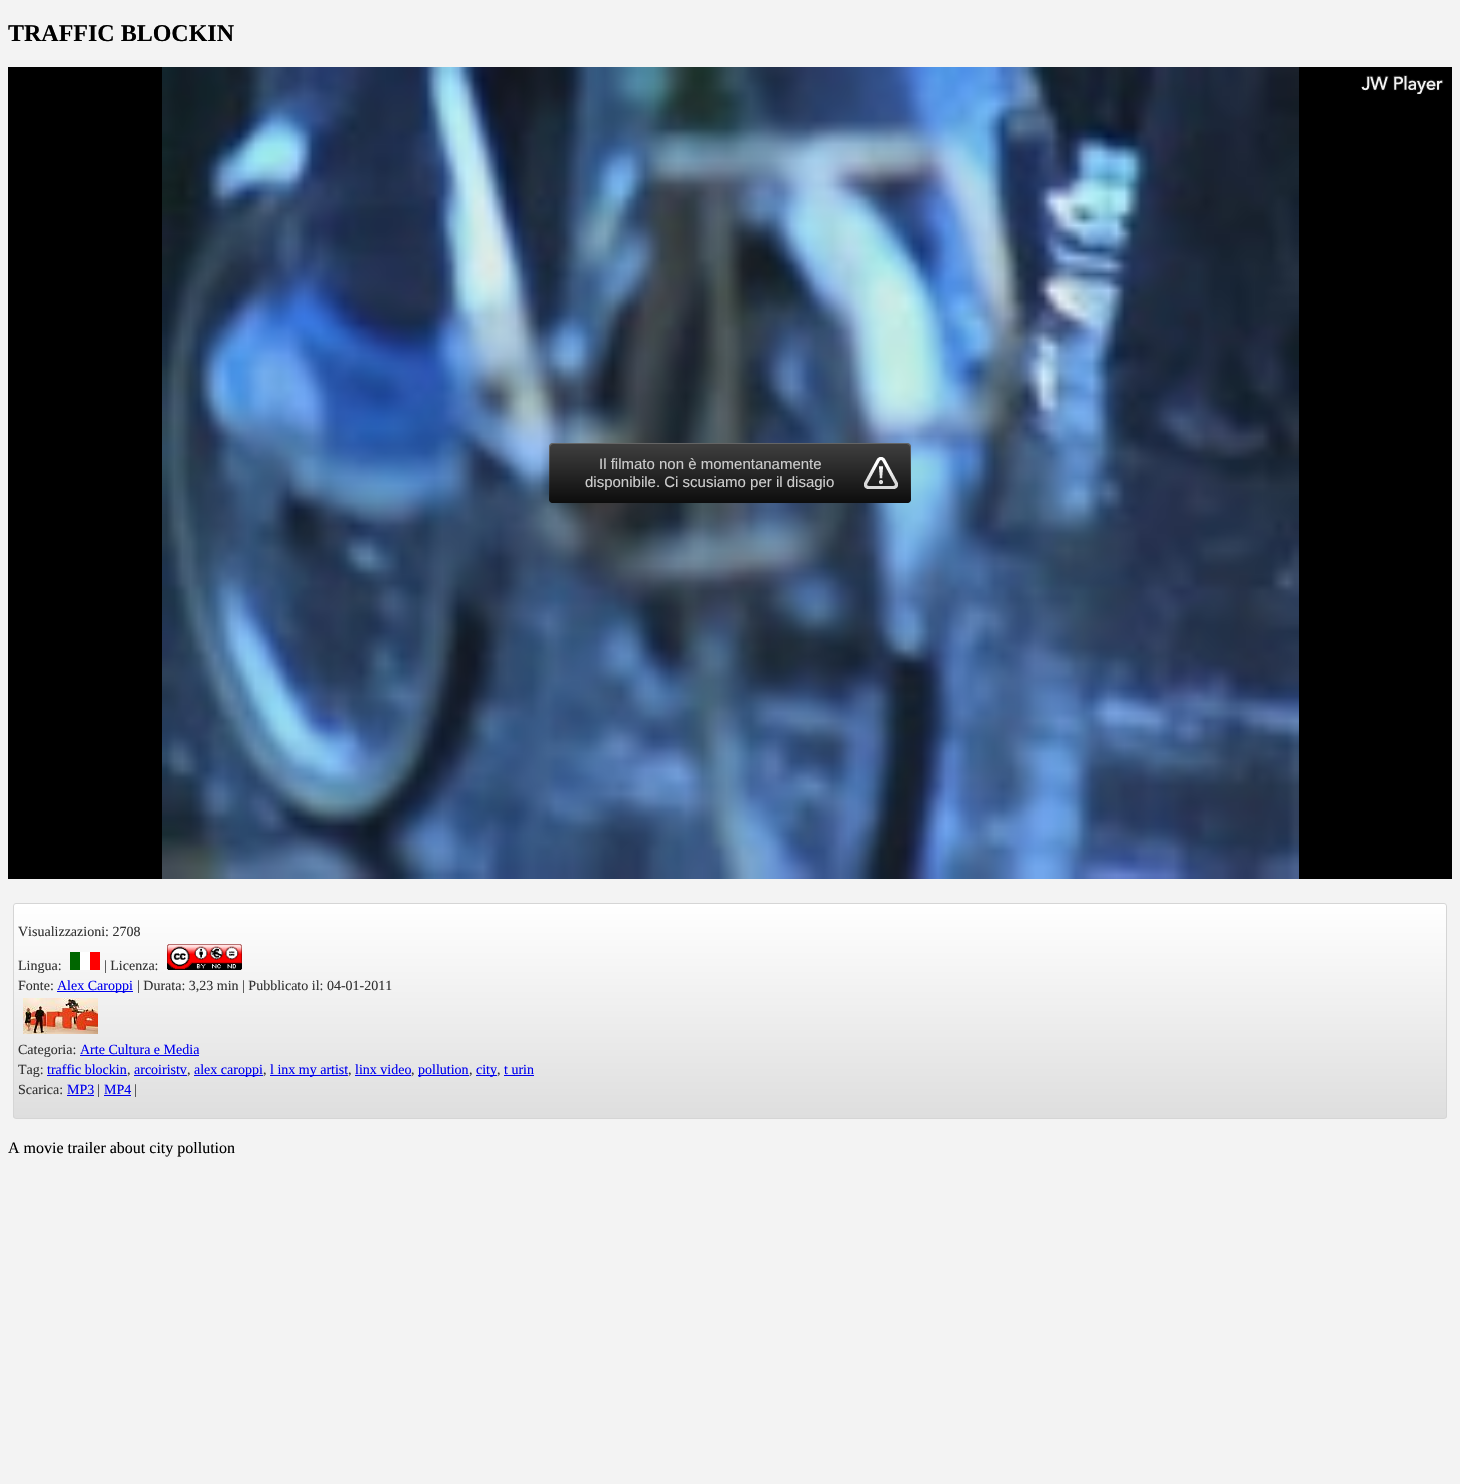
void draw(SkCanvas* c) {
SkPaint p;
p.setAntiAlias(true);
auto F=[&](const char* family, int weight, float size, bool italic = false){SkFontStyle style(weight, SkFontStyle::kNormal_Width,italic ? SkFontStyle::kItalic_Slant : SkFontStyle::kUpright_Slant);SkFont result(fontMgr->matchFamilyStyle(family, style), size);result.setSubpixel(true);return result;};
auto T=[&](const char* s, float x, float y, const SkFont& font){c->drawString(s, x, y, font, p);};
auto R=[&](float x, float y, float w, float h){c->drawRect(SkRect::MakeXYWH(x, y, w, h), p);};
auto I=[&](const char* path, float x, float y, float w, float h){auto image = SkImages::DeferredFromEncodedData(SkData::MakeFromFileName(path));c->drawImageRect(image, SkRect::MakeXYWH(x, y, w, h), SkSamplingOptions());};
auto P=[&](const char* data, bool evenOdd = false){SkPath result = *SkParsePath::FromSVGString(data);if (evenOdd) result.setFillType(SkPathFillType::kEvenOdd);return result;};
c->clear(0xfff3f3f3);
auto f1 = F("Liberation Serif",700,24);
p.setColor(0xff000000);
T("TRAFFIC BLOCKIN",8,41,f1);
R(8,67,1444,812);
I("1.png",1361,75,83,20);
I("2.png",162,67,1137,812);
I("3.png",549,443,362,60);
auto f2 = F("Liberation Sans",400,15);
p.setColor(0xffcccccc);
T("Il filmato non è momentanamente",599,469,f2);
T("disponibile. Ci scusiamo per il disagio",585,487,f2);
I("4.png",864,457,34,32);
c->save();
c->clipPath(P("M16 903h1428c1.5 0 3 1.5 3 3v210c0 1.5-1.5 3-3 3h-1428c-1.5 0-3-1.5-3-3v-210c0-1.5 1.5-3 3-3z"),true);
{
const SkColor colors[] = {0xffffffff,0xffdedede};
const float stops[] = {0,1};
const SkPoint ends[] = {{730,904}, {730,1118}};
p.setShader(SkGradientShader::MakeLinear(ends, colors, stops, 2, SkTileMode::kClamp));
p.setAlpha(255);
}
R(13,904,1434,214);
c->restore();
p.setStroke(true);
p.setStrokeWidth(1);
p.setShader(nullptr);
p.setColor(0xffd5d5d5);
c->drawRoundRect(SkRect::MakeXYWH(13.5,903.5,1433,215),2.5,2.5,p);
auto f3 = F("Liberation Serif",400,14);
p.setStroke(false);
p.setColor(0xff333333);
T("Visualizzazioni: 2708",18,936,f3);
T("Lingua:",18,970,f3);
I("5.png",70,952,30,18);
T("| Licenza:",104,970,f3);
I("6.png",167,944,75,26);
T("Fonte:",18,990,f3);
p.setColor(0xff0000ee);
R(57,991,76,1);
T("Alex Caroppi",57,990,f3);
p.setColor(0xff333333);
T("| Durata: 3,23 min | Pubblicato il: 04-01-2011",137,990,f3);
I("7.png",23,998,75,36);
T("Categoria:",18,1054,f3);
p.setColor(0xff0000ee);
T("Arte Cultura e Media",80,1054,f3);
R(80,1055,119,1);
p.setColor(0xff333333);
T("Tag:",18,1074,f3);
p.setColor(0xff0000ee);
T("traffic blockin",47,1074,f3);
R(47,1075,80,1);
p.setColor(0xff333333);
T(",",127,1074,f3);
p.setColor(0xff0000ee);
T("arcoiristv",134,1074,f3);
R(134,1075,53,1);
p.setColor(0xff333333);
T(",",187,1074,f3);
p.setColor(0xff0000ee);
R(194,1075,69,1);
T("alex caroppi",194,1074,f3);
p.setColor(0xff333333);
T(",",263,1074,f3);
p.setColor(0xff0000ee);
R(270,1075,78,1);
T("l inx my artist",270,1074,f3);
p.setColor(0xff333333);
T(",",348,1074,f3);
p.setColor(0xff0000ee);
T("linx video",355,1074,f3);
R(355,1075,56,1);
p.setColor(0xff333333);
T(",",411,1074,f3);
p.setColor(0xff0000ee);
R(418,1075,51,1);
T("pollution",418,1074,f3);
p.setColor(0xff333333);
T(",",469,1074,f3);
p.setColor(0xff0000ee);
R(476,1075,21,1);
T("city",476,1074,f3);
p.setColor(0xff333333);
T(",",497,1074,f3);
p.setColor(0xff0000ee);
T("t urin",504,1074,f3);
R(504,1075,30,1);
p.setColor(0xff333333);
T("Scarica:",18,1094,f3);
p.setColor(0xff0000ee);
T("MP3",67,1094,f3);
R(67,1095,27,1);
p.setColor(0xff333333);
T("|",97,1094,f3);
p.setColor(0xff0000ee);
T("MP4",104,1094,f3);
R(104,1095,27,1);
p.setColor(0xff333333);
T("|",134,1094,f3);
auto f4 = F("Liberation Serif",400,16);
p.setColor(0xff000000);
T("A movie trailer about city pollution",8,1153,f4);
}
